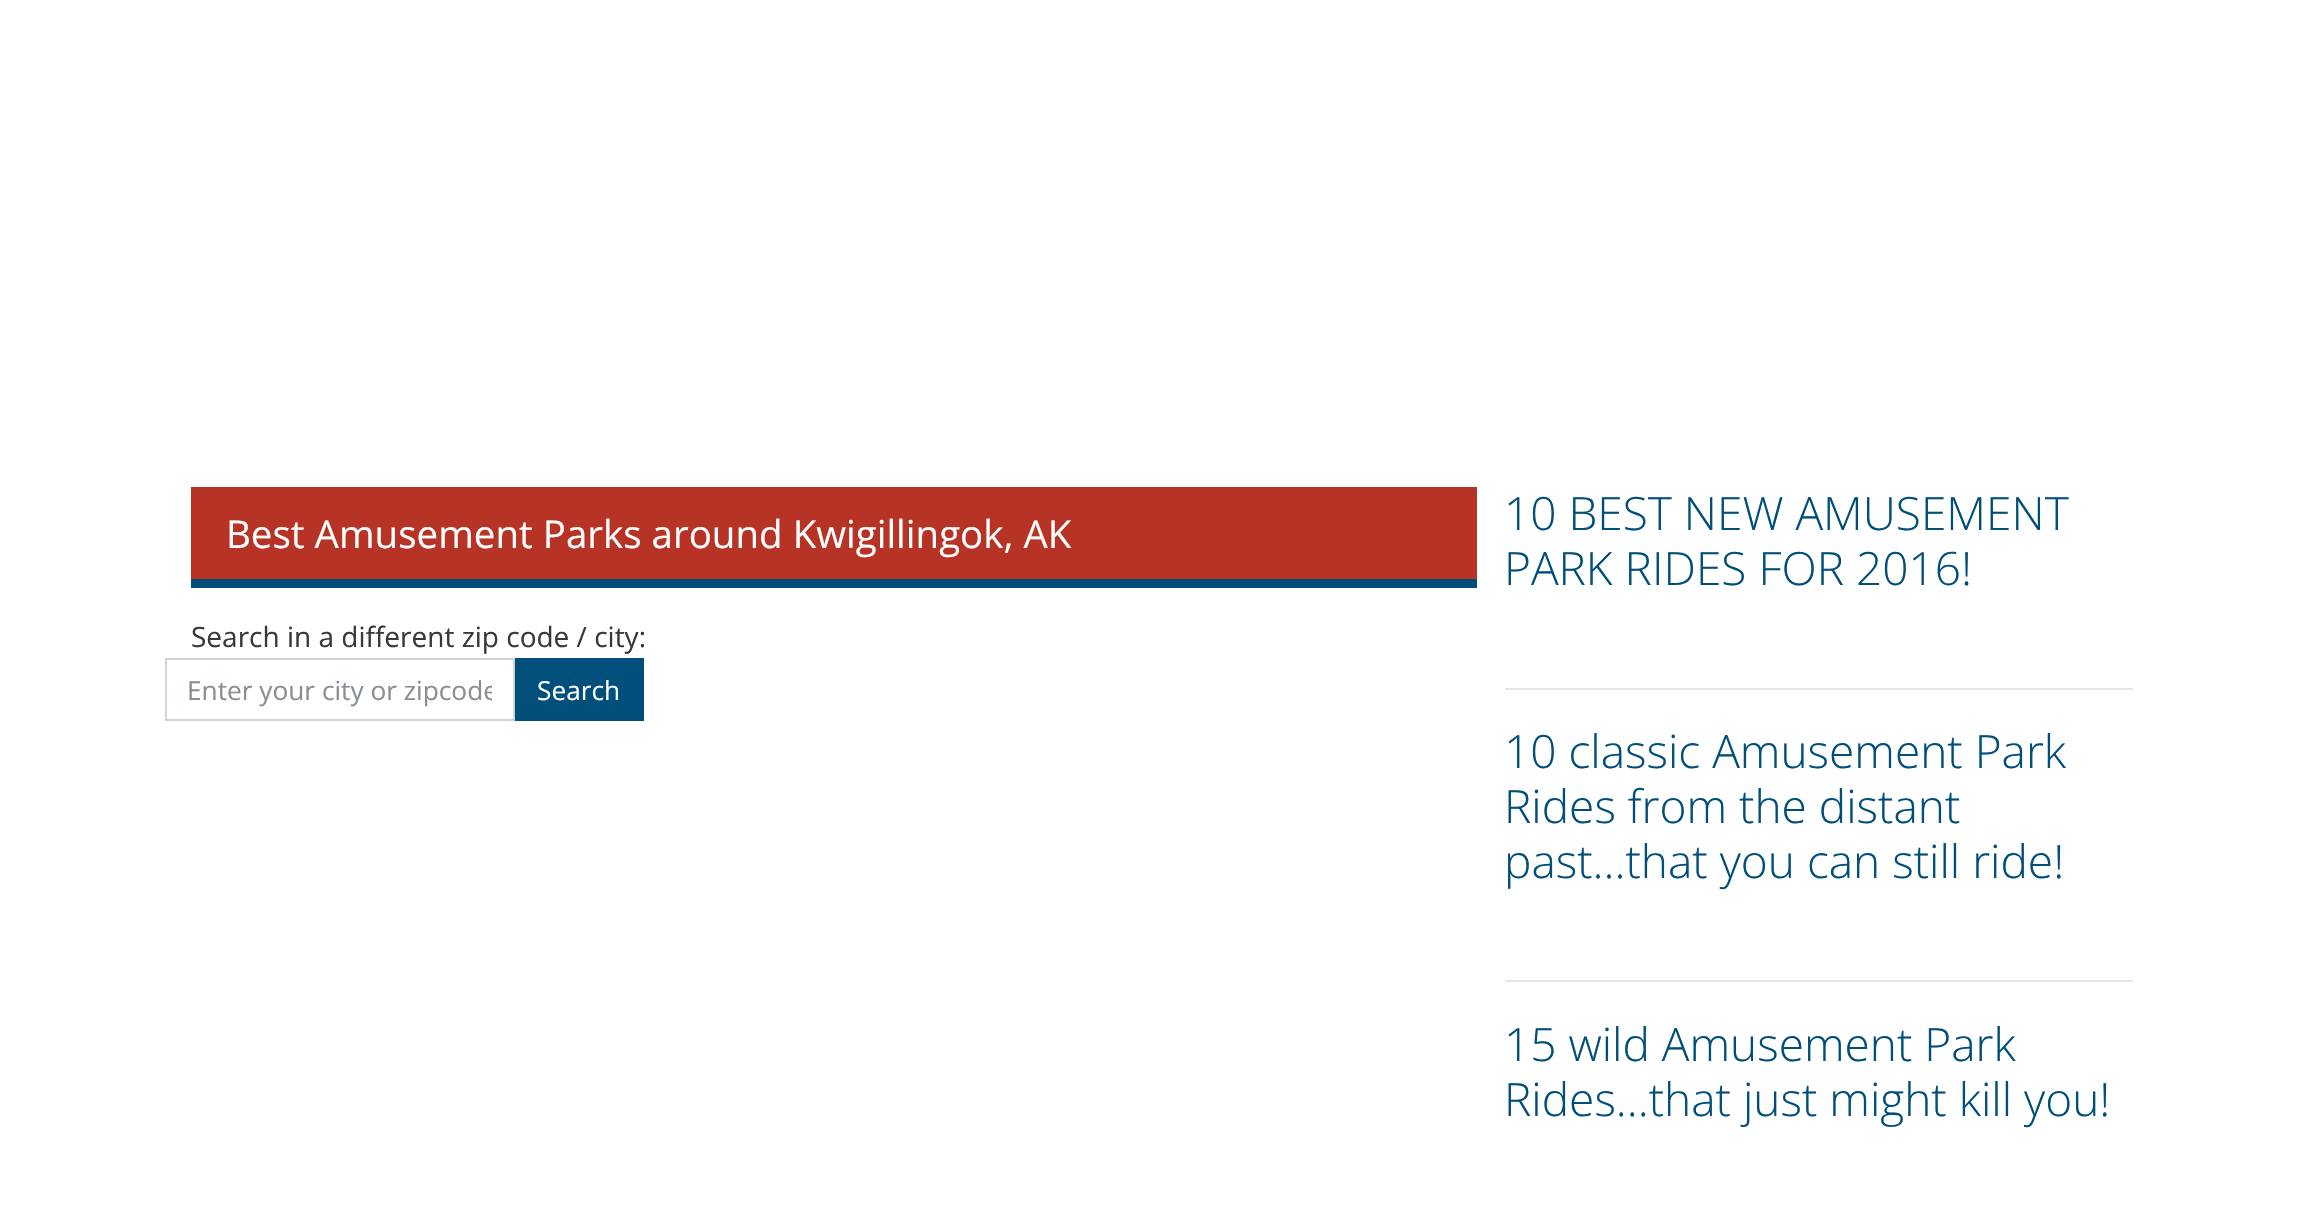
void draw(SkCanvas* c) {
SkPaint p;
p.setAntiAlias(true);
auto F=[&](const char* family, int weight, float size, bool italic = false){SkFontStyle style(weight, SkFontStyle::kNormal_Width,italic ? SkFontStyle::kItalic_Slant : SkFontStyle::kUpright_Slant);SkFont result(fontMgr->matchFamilyStyle(family, style), size);result.setSubpixel(true);return result;};
auto T=[&](const char* s, float x, float y, const SkFont& font){c->drawString(s, x, y, font, p);};
auto R=[&](float x, float y, float w, float h){c->drawRect(SkRect::MakeXYWH(x, y, w, h), p);};
c->clear(0xffffffff);
p.setColor(0xffb63325);
R(191,487,1286,92);
p.setColor(0xff004f7b);
R(191,579,1286,9);
auto f1 = F("Open Sans",400,38.5);
p.setColor(0xffffffff);
T("Best Amusement Parks around Kwigillingok, AK",226,548,f1);
auto f2 = F("Open Sans",400,28);
p.setColor(0xff373a3c);
T("Search in a different zip code / city:",191,647,f2);
p.setStroke(true);
p.setStrokeWidth(2);
p.setColor(0xffced4da);
c->drawRect(SkRect::MakeXYWH(166,659,348,61),p);
c->save();
c->clipRect(SkRect::MakeXYWH(187,672,305,35));
auto f3 = F("Open Sans",400,26.25);
p.setStroke(false);
p.setColor(0xff868e96);
T("Enter your city or zipcode",187,700,f3);
c->restore();
p.setColor(0xff004f7b);
R(515,658,129,63);
p.setColor(0xffffffff);
T("Search",537,700,f3);
p.setColor(0xffe5e5e5);
R(1505,688,628,2);
auto f4 = F("Open Sans",300,46);
p.setColor(0xff004f7b);
T("10 BEST NEW AMUSEMENT",1504,530,f4);
T("PARK RIDES FOR 2016!",1504,585,f4);
p.setColor(0xffe5e5e5);
R(1505,980,628,2);
p.setColor(0xff004f7b);
T("10 classic Amusement Park",1504,768,f4);
T("Rides from the distant",1504,823,f4);
T("past...that you can still ride!",1504,878,f4);
T("15 wild Amusement Park",1504,1061,f4);
T("Rides...that just might kill you!",1504,1116,f4);
}
